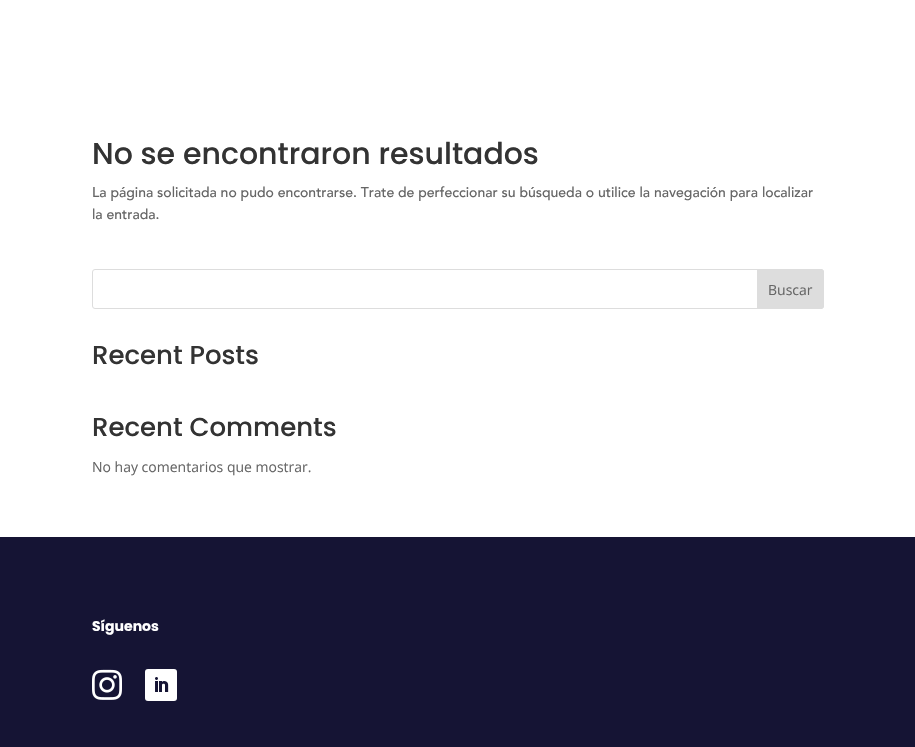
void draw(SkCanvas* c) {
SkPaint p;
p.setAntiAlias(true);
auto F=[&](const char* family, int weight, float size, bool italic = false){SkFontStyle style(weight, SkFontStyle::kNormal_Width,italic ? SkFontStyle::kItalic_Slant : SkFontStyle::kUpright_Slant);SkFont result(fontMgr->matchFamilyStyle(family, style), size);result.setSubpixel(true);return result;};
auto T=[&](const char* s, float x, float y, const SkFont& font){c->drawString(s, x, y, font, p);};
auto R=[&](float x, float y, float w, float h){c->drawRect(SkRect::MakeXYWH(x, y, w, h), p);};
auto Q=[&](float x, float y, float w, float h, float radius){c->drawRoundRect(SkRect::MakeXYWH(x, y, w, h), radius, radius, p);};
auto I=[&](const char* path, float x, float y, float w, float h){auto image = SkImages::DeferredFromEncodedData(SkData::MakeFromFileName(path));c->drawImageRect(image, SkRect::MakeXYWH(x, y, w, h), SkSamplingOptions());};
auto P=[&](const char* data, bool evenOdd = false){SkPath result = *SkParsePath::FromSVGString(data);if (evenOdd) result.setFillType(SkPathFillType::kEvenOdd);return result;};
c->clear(0xffffffff);
auto f1 = F("Poppins",500,30);
p.setColor(0xff333333);
T("No se encontraron resultados",92,164,f1);
auto f2 = F("Avenir",500,14);
p.setColor(0xff666666);
T("La página solicitada no pudo encontrarse. Trate de perfeccionar su búsqueda o utilice la navegación para localizar",92,197,f2);
T("la entrada.",92,219,f2);
p.setStroke(true);
p.setStrokeWidth(1);
p.setColor(0xffdddddd);
c->drawRoundRect(SkRect::MakeXYWH(92.5,269.5,731,39),2.5,2.5,p);
p.setStroke(false);
c->drawPath(P("M757.5 269.5h63.5c1.5 0 2.5 1 2.5 2.5v34c0 1.5-1 2.5-2.5 2.5h-63.5z"),p);
p.setStroke(true);
c->drawPath(P("M757.5 269.5h63.5c1.5 0 2.5 1 2.5 2.5v34c0 1.5-1 2.5-2.5 2.5h-63.5z"),p);
auto f3 = F("Open Sans",400,14);
p.setStroke(false);
p.setColor(0xff666666);
T("Buscar",768,295,f3);
auto f4 = F("Poppins",500,26);
p.setColor(0xff333333);
T("Recent Posts",92,364,f4);
T("Recent Comments",92,436,f4);
p.setColor(0xff666666);
T("No hay comentarios que mostrar.",92,472,f3);
p.setColor(0xff151434);
R(0,537,915,210);
auto f5 = F("Poppins",700,14);
p.setColor(0xffffffff);
T("Síguenos",92,631,f5);
I("1.png",92,669,30,31);
Q(145,669,32,32,3);
I("2.png",155,677,14,15);
}
